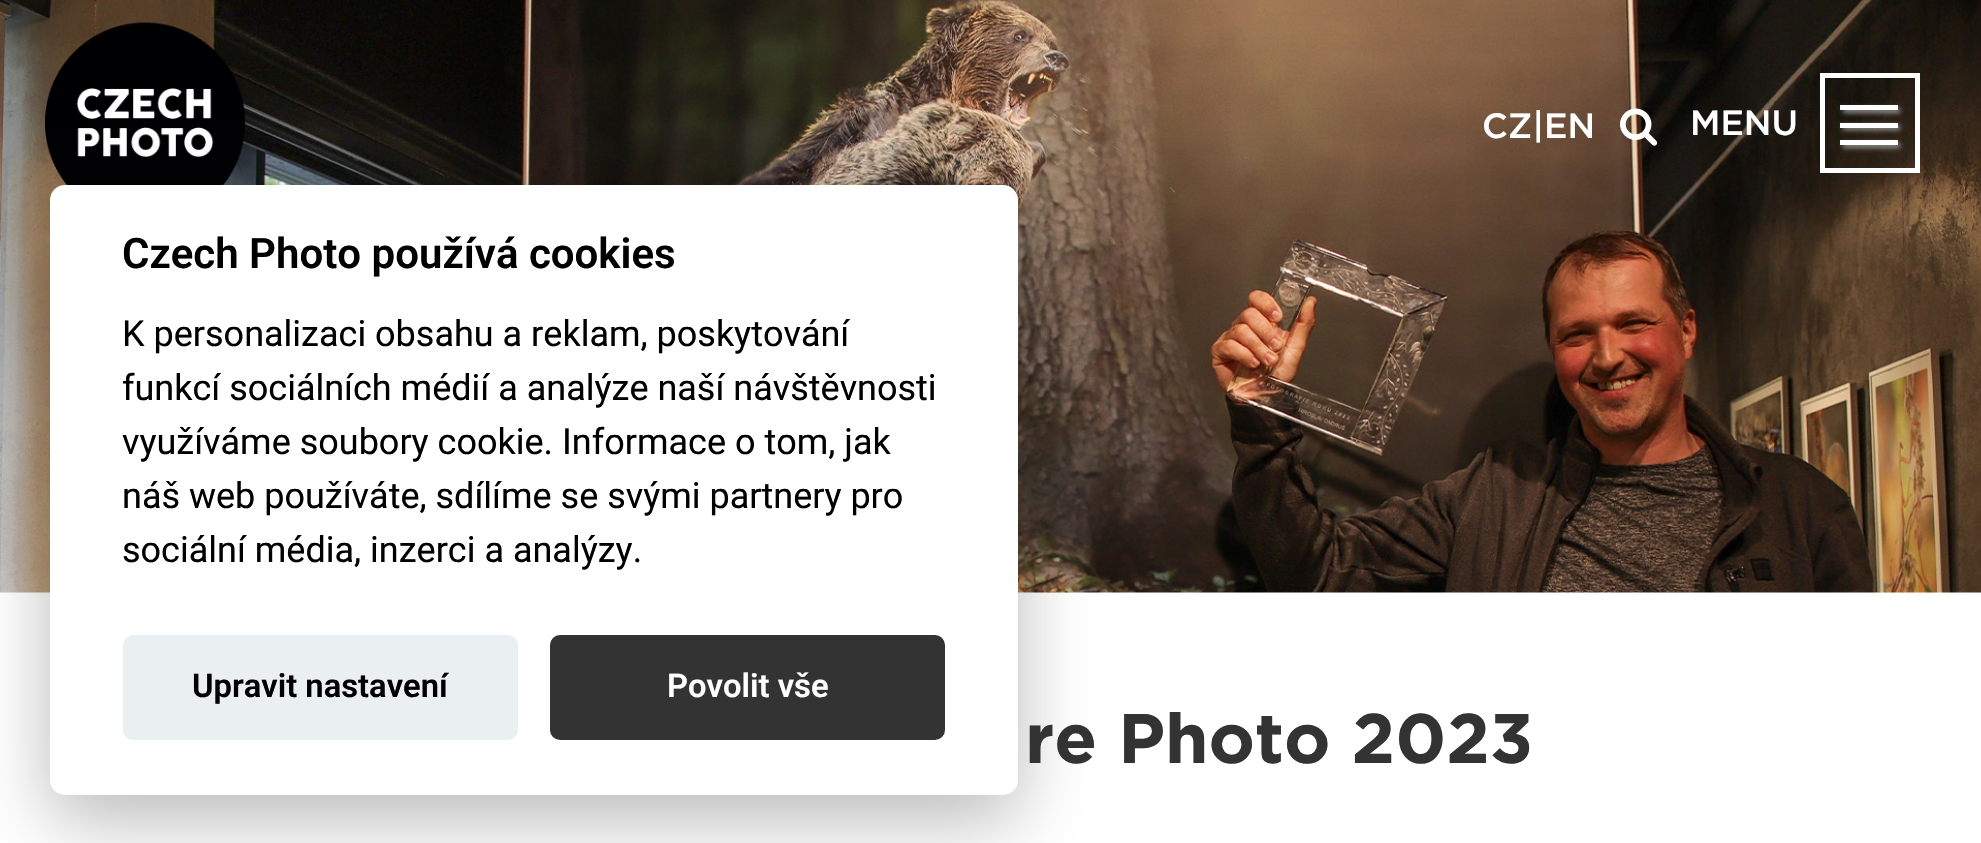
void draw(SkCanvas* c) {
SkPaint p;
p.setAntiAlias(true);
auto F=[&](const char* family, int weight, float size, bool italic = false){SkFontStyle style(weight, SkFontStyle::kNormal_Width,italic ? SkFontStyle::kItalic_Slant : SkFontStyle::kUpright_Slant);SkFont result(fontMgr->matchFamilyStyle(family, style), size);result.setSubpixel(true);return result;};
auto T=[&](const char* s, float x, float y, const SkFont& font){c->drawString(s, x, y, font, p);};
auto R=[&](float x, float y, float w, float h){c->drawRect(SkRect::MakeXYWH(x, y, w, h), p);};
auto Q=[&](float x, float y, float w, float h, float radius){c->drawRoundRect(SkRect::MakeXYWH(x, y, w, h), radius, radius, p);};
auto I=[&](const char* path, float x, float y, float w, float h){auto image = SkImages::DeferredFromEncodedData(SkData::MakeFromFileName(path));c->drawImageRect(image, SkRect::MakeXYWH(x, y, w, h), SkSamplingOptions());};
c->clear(0xffffffff);
I("3.png",0,0,1981,593);
I("1.png",45,22,200,163);
auto f1 = F("Gotham",500,35);
p.setColor(0xffffffff);
T("CZ|EN",1482,138,f1);
I("2.png",1620,108,38,38);
p.setStroke(true);
p.setStrokeWidth(5);
c->drawRect(SkRect::MakeXYWH(1822.5,75.5,95,95),p);
p.setStroke(false);
T("MENU",1690,135,f1);
p.setColor(0xff999797);
p.setMaskFilter(SkMaskFilter::MakeBlur(kNormal_SkBlurStyle, 2.5));
c->drawRect(SkRect::MakeXYWH(1843,108,57,5),p);
p.setMaskFilter(nullptr);
p.setColor(0xffffffff);
R(1840,105,58,5);
p.setColor(0xff999797);
p.setMaskFilter(SkMaskFilter::MakeBlur(kNormal_SkBlurStyle, 2.5));
c->drawRect(SkRect::MakeXYWH(1843,125,57,5),p);
p.setMaskFilter(nullptr);
p.setColor(0xffffffff);
R(1840,123,58,5);
p.setColor(0xff999797);
p.setMaskFilter(SkMaskFilter::MakeBlur(kNormal_SkBlurStyle, 2.5));
c->drawRect(SkRect::MakeXYWH(1843,143,57,5),p);
p.setMaskFilter(nullptr);
p.setColor(0xffffffff);
R(1840,140,58,5);
p.setColor(0x47020203);
p.setMaskFilter(SkMaskFilter::MakeBlur(kNormal_SkBlurStyle, 37.5));
c->drawRoundRect(SkRect::MakeXYWH(50,210,968,610),15,15,p);
p.setMaskFilter(nullptr);
p.setColor(0xffffffff);
Q(50,185,968,610,15);
auto f2 = F("Roboto",600,42);
p.setColor(0xff000000);
T("Czech Photo používá cookies",122,268,f2);
auto f3 = F("Roboto",400,36);
T("K personalizaci obsahu a reklam, poskytování",122,346,f3);
T("funkcí sociálních médií a analýze naší návštěvnosti",122,400,f3);
T("využíváme soubory cookie. Informace o tom, jak",122,454,f3);
T("náš web používáte, sdílíme se svými partnery pro",122,508,f3);
T("sociální média, inzerci a analýzy.",122,562,f3);
p.setColor(0xffeaeff2);
Q(123,635,395,105,10);
auto f4 = F("Roboto",600,32.75);
p.setColor(0xff000000);
T("Upravit nastavení",192,697,f4);
p.setColor(0xff333333);
Q(550,635,395,105,10);
p.setColor(0xffffffff);
T("Povolit vše",667,697,f4);
auto f5 = F("Gotham",700,70);
p.setColor(0xff333333);
T("re Photo 2023",1025,763,f5);
}
